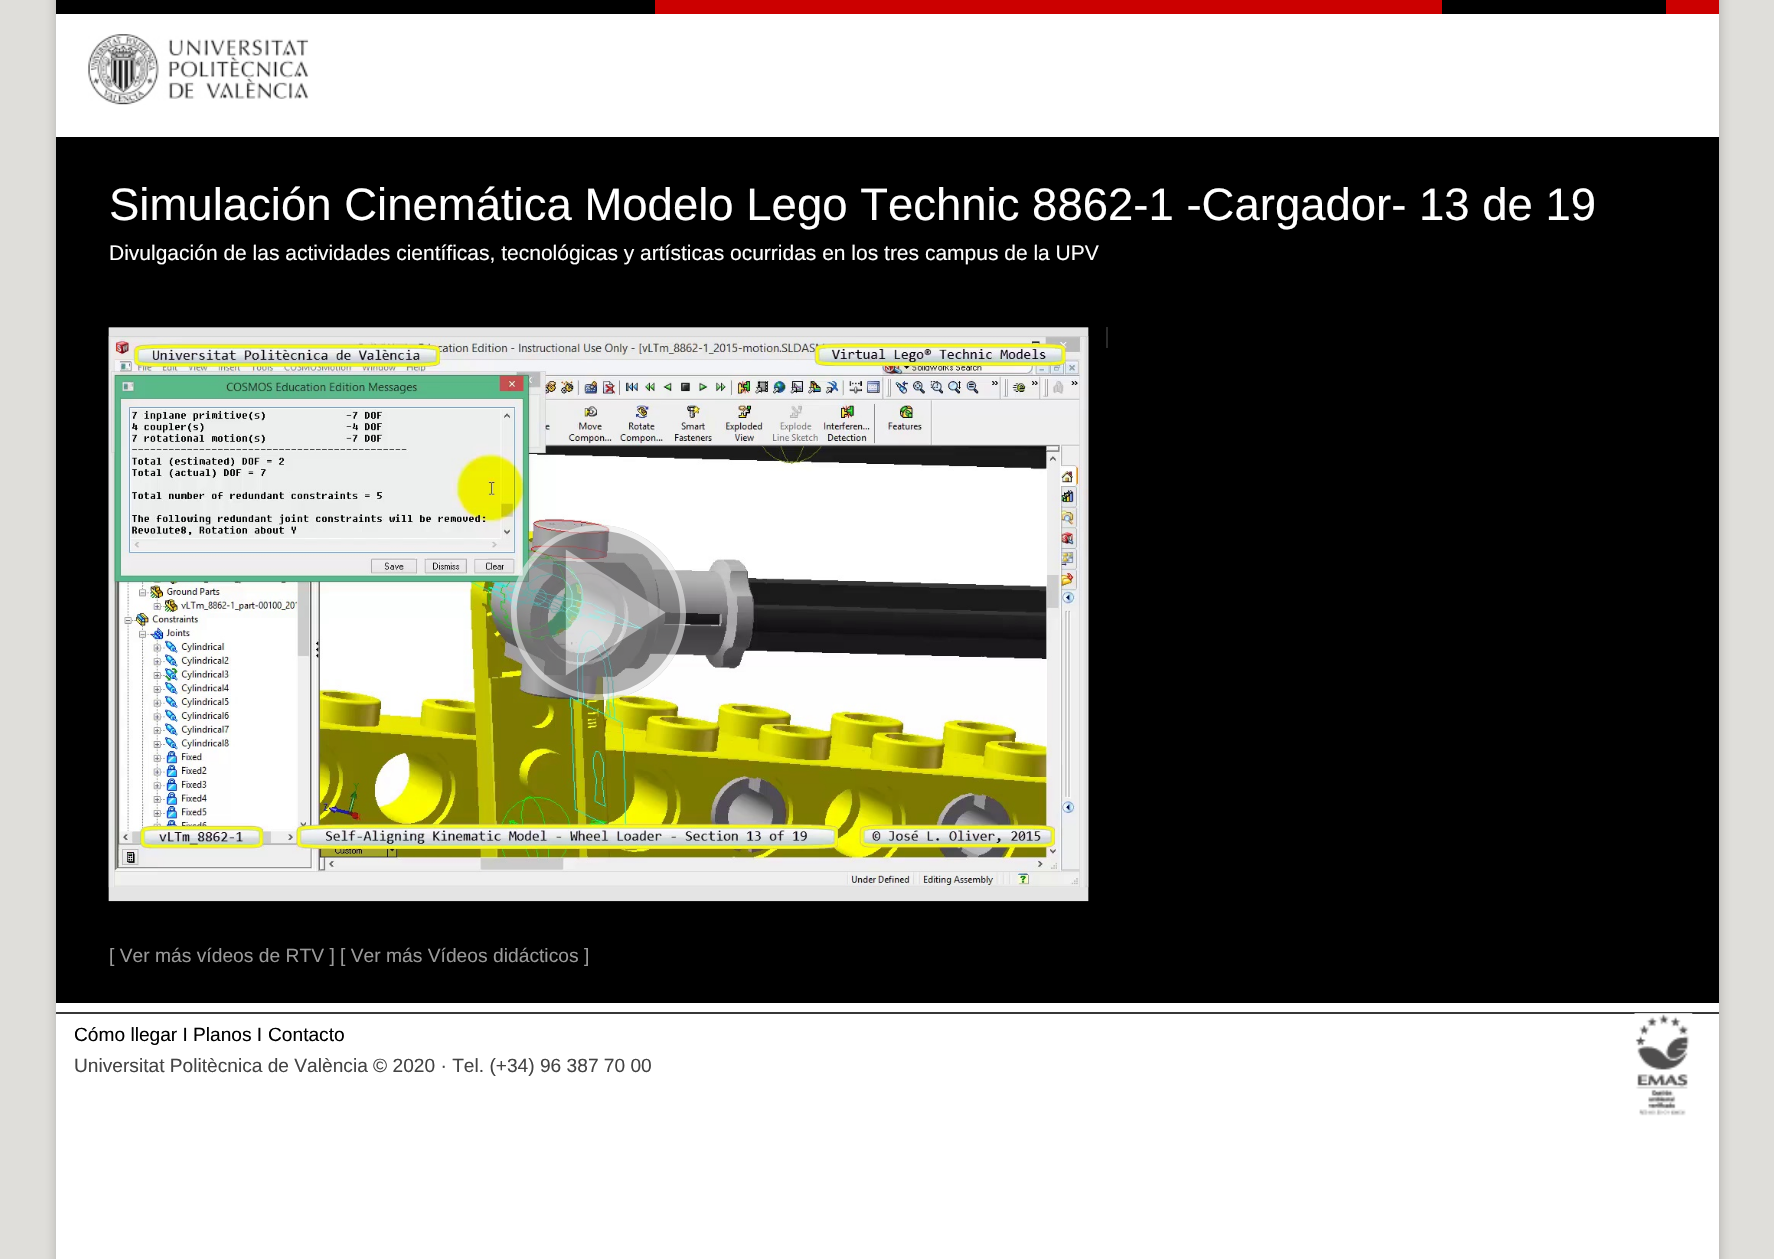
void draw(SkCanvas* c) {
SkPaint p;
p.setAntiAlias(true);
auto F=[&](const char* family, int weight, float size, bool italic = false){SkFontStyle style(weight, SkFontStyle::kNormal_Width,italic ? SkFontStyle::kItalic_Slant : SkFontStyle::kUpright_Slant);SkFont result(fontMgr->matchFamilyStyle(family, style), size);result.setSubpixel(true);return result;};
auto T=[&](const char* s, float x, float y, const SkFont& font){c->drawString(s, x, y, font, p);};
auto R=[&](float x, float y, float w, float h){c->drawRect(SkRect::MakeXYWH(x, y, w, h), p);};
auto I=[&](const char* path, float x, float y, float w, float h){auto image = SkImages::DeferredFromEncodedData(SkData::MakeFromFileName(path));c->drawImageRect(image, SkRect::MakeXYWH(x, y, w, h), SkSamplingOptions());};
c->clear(0xffffffff);
I("1.png",0,0,1774,1259);
p.setColor(0xffffffff);
R(56,14,1663,1245);
p.setColor(0xffcc0000);
R(655,0,1064,14);
p.setColor(0xff000000);
R(56,0,599,14);
R(1442,0,224,14);
I("2.png",88,34,221,71);
R(56,137,1663,866);
auto f1 = F("Liberation Sans",400,45.5);
p.setColor(0xffffffff);
T("Simulación Cinemática Modelo Lego Technic 8862-1 -Cargador- 13 de 19",109,220,f1);
auto f2 = F("Liberation Sans",400,21);
T("Divulgación de las actividades científicas, tecnológicas y artísticas ocurridas en los tres campus de la UPV",109,260,f2);
I("3.png",108,327,981,575);
auto f3 = F("Liberation Sans",400,19.25);
p.setColor(0xff999999);
T("[ Ver más vídeos de RTV ]",109,962,f3);
T("[ Ver más Vídeos didácticos ]",340,962,f3);
p.setColor(0xff2a2a2a);
R(1106,327,2,21);
p.setColor(0xff373737);
R(56,1012,1663,2);
auto f4 = F("Liberation Sans",400,19.15);
p.setColor(0xff000000);
T("Cómo llegar I",74,1041,f4);
T("Planos I",193,1041,f4);
T("Contacto",268,1041,f4);
p.setColor(0xff444444);
T("Universitat Politècnica de València © 2020 · Tel. (+34) 96 387 70 00",74,1072,f4);
I("4.png",1634,1013,59,103);
}
